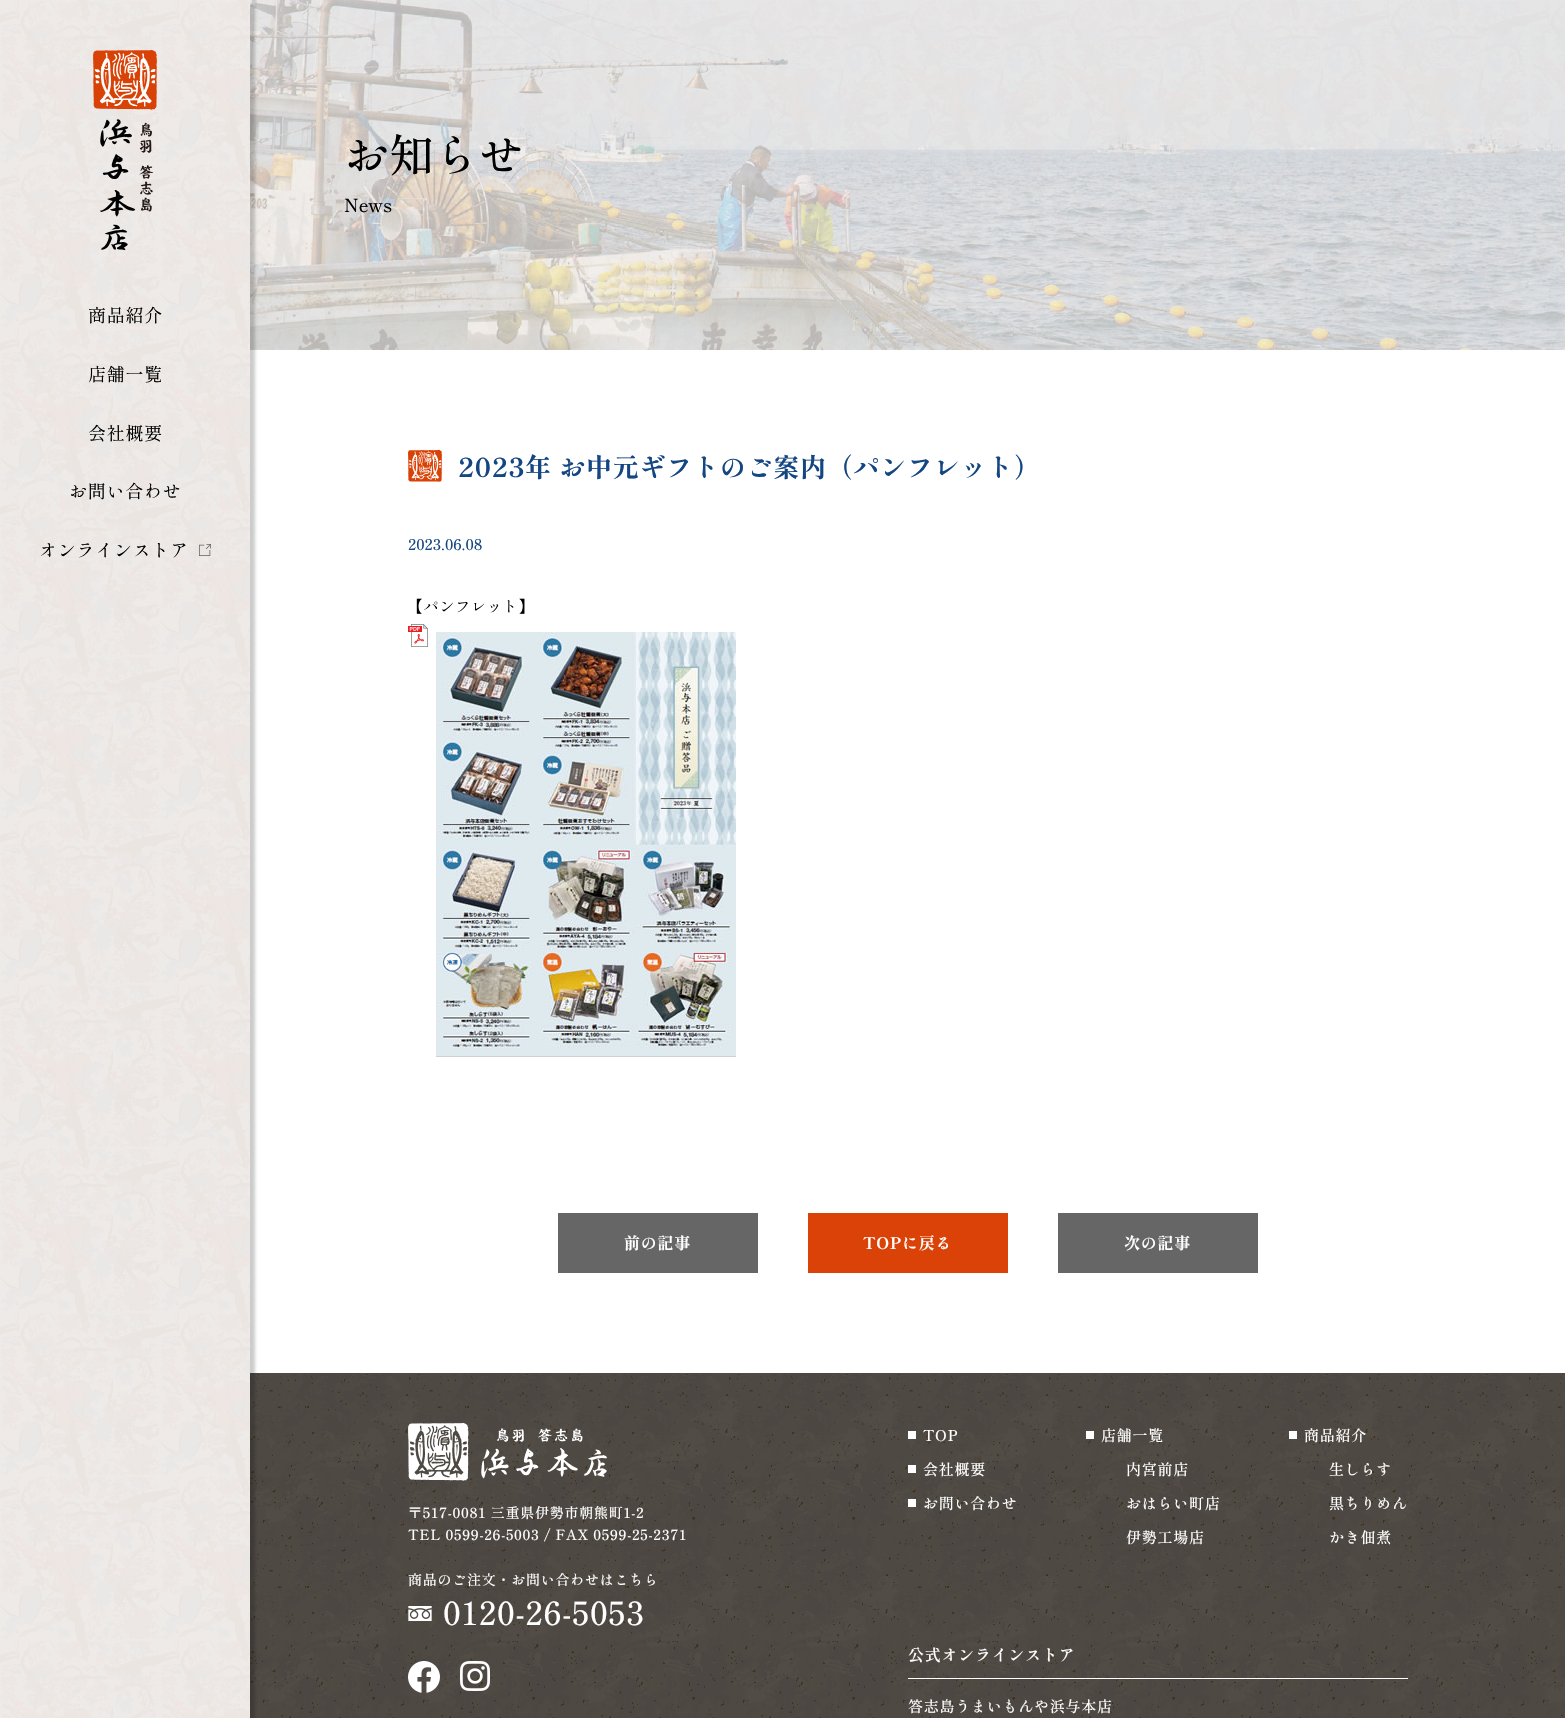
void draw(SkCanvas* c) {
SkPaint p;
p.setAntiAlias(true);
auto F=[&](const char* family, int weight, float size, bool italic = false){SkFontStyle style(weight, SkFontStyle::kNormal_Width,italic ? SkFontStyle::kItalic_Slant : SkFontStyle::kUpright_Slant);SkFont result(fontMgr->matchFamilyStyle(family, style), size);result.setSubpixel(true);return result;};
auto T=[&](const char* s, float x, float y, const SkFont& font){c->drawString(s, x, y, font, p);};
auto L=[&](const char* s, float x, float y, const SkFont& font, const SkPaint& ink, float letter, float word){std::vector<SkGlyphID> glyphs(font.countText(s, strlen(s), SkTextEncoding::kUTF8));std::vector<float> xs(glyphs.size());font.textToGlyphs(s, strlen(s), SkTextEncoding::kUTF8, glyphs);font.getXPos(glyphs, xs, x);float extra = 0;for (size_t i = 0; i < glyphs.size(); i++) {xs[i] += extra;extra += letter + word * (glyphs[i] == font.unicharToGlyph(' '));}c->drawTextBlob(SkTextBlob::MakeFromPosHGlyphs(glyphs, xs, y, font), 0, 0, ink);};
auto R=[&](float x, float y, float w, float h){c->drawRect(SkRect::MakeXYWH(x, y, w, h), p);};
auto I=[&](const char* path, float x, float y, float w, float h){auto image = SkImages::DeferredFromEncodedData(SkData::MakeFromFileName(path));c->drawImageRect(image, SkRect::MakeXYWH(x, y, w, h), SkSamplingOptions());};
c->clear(0xffffffff);
I("4.png",250,0,1315,350);
I("5.png",250,0,1315,350);
I("9.png",250,1373,1315,345);
p.setColor(0x33000000);
p.setMaskFilter(SkMaskFilter::MakeBlur(kNormal_SkBlurStyle, 1.5));
c->drawRect(SkRect::MakeXYWH(5,5,250,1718),p);
p.setMaskFilter(nullptr);
I("1.png",0,0,250,1718);
I("2.png",93,50,64,200);
auto f1 = F("Shippori Mincho",400,18);
p.setColor(0xff000000);
L("商品紹介",88,322,f1,p,.75,0);
L("店舗一覧",88,381,f1,p,.75,0);
L("会社概要",88,440,f1,p,.75,0);
L("お問い合わせ",69,498,f1,p,.75,0);
L("オンラインストア",39,557,f1,p,.75,0);
I("3.png",199,544,12,12);
auto f2 = F("Shippori Mincho",500,45);
T("お知らせ",344,172,f2);
auto f3 = F("Shippori Mincho",500,18);
T("News",344,212,f3);
I("6.png",408,450,34,32);
auto f4 = F("Shippori Mincho",700,26);
p.setColor(0xff144682);
L("2023年 お中元ギフトのご案内（パンフレット）",458,477,f4,p,.75,0);
auto f5 = F("Shippori Mincho",500,15);
T("2023.06.08",408,550,f5);
auto f6 = F("Shippori Mincho",400,15);
p.setColor(0xff000000);
L("【パンフレット】",408,612,f6,p,.75,0);
I("7.png",408,624,20,23);
I("8.png",436,632,300,425);
p.setColor(0xff666666);
R(558,1213,200,60);
auto f7 = F("Shippori Mincho",700,16);
p.setColor(0xffffffff);
L("前の記事",624,1249,f7,p,.75,0);
p.setColor(0xffda4207);
R(808,1213,200,60);
p.setColor(0xffffffff);
L("TOPに戻る",863,1249,f7,p,.75,0);
p.setColor(0xff666666);
R(1058,1213,200,60);
p.setColor(0xffffffff);
L("次の記事",1124,1249,f7,p,.75,0);
I("10.png",408,1423,199,58);
auto f8 = F("Shippori Mincho",500,14);
L("〒517-0081 三重県伊勢市朝熊町1-2",408,1518,f8,p,.75,0);
L("TEL 0599-26-5003 / FAX 0599-25-2371",408,1540,f8,p,.75,0);
L("商品のご注文・お問い合わせはこちら",408,1585,f8,p,.75,0);
I("11.png",408,1606,24,15);
auto f9 = F("Shippori Mincho",500,32);
L("0120-26-5053",443,1625,f9,p,.75,0);
I("12.png",408,1661,32,32);
I("13.png",460,1661,30,30);
L("TOP",923,1441,f5,p,.75,0);
R(908,1431,8,8);
L("会社概要",923,1475,f5,p,.75,0);
R(908,1465,8,8);
L("お問い合わせ",923,1509,f5,p,.75,0);
R(908,1499,8,8);
L("店舗一覧",1101,1441,f5,p,.75,0);
R(1086,1431,8,8);
L("内宮前店",1126,1475,f5,p,.75,0);
L("おはらい町店",1126,1509,f5,p,.75,0);
L("伊勢工場店",1126,1543,f5,p,.75,0);
L("商品紹介",1304,1441,f5,p,.75,0);
R(1289,1431,8,8);
L("生しらす",1329,1475,f5,p,.75,0);
L("黒ちりめん",1329,1509,f5,p,.75,0);
L("かき佃煮",1329,1543,f5,p,.75,0);
auto f10 = F("Shippori Mincho",600,16);
L("公式オンラインストア",908,1661,f10,p,.75,0);
R(908,1678,500,1);
L("答志島うまいもんや浜与本店",908,1712,f5,p,.75,0);
}
